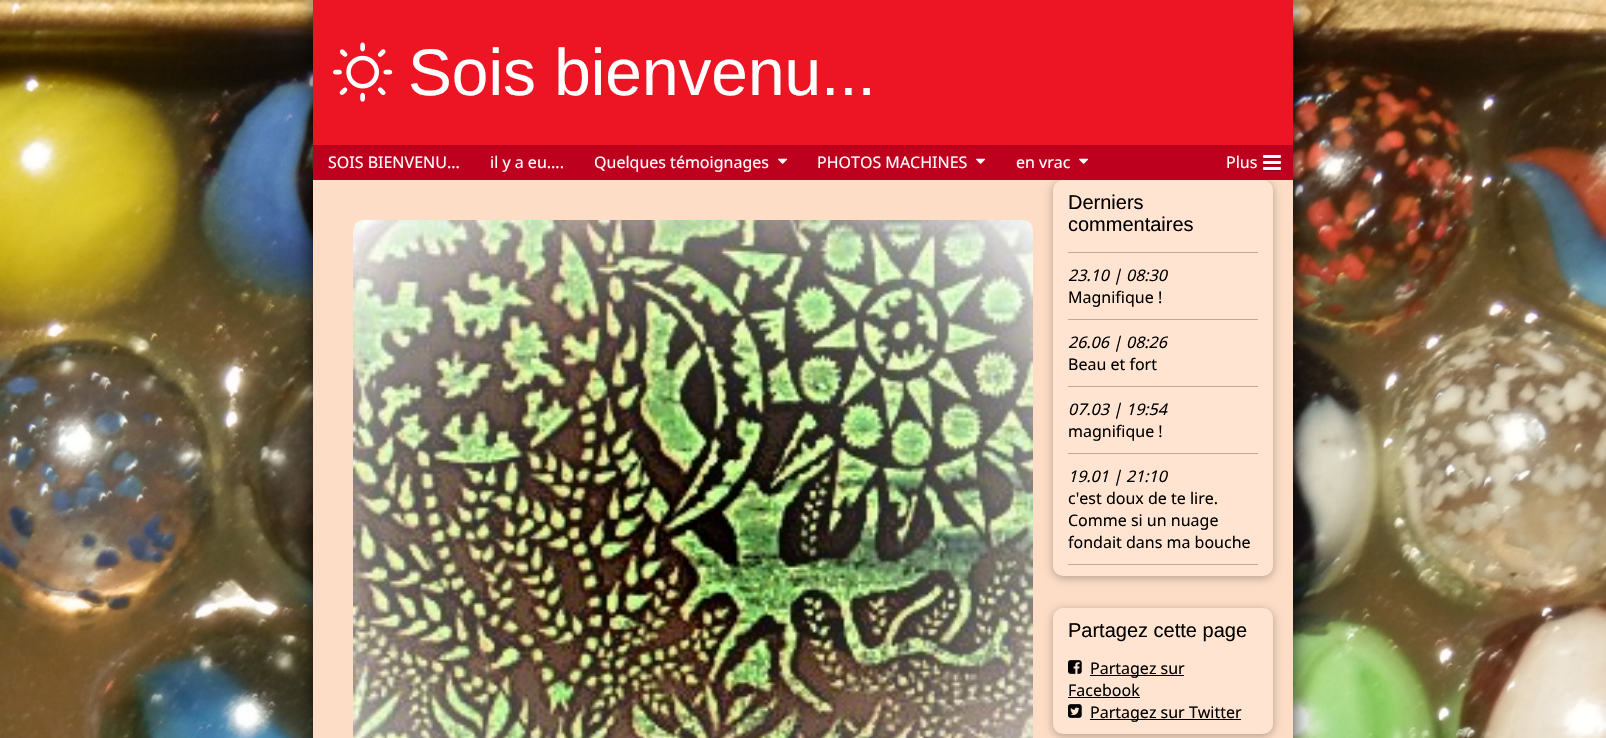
void draw(SkCanvas* c) {
SkPaint p;
p.setAntiAlias(true);
auto F=[&](const char* family, int weight, float size, bool italic = false){SkFontStyle style(weight, SkFontStyle::kNormal_Width,italic ? SkFontStyle::kItalic_Slant : SkFontStyle::kUpright_Slant);SkFont result(fontMgr->matchFamilyStyle(family, style), size);result.setSubpixel(true);return result;};
auto T=[&](const char* s, float x, float y, const SkFont& font){c->drawString(s, x, y, font, p);};
auto R=[&](float x, float y, float w, float h){c->drawRect(SkRect::MakeXYWH(x, y, w, h), p);};
auto Q=[&](float x, float y, float w, float h, float radius){c->drawRoundRect(SkRect::MakeXYWH(x, y, w, h), radius, radius, p);};
auto I=[&](const char* path, float x, float y, float w, float h){auto image = SkImages::DeferredFromEncodedData(SkData::MakeFromFileName(path));c->drawImageRect(image, SkRect::MakeXYWH(x, y, w, h), SkSamplingOptions());};
auto P=[&](const char* data, bool evenOdd = false){SkPath result = *SkParsePath::FromSVGString(data);if (evenOdd) result.setFillType(SkPathFillType::kEvenOdd);return result;};
c->clear(0xffffffff);
I("1.png",0,0,1606,738);
p.setColor(0xcc000000);
p.setMaskFilter(SkMaskFilter::MakeBlur(kNormal_SkBlurStyle, 12));
c->drawRoundRect(SkRect::MakeXYWH(313,0,980,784),10,10,p);
p.setMaskFilter(nullptr);
p.setColor(0xfffdddc6);
R(313,180,980,558);
p.setColor(0xffed1523);
R(313,0,980,145);
I("2.png",333,42,60,60);
auto f1 = F("Liberation Sans",400,65.75);
p.setColor(0xffffffff);
T("Sois bienvenu...",408,95,f1);
p.setColor(0x4a000000);
p.setMaskFilter(SkMaskFilter::MakeBlur(kNormal_SkBlurStyle, 5));
c->drawRoundRect(SkRect::MakeXYWH(1053,182,220,396),10,10,p);
p.setMaskFilter(nullptr);
p.setColor(0xffbe001f);
R(313,145,980,35);
auto f2 = F("Noto Sans",400,16);
p.setColor(0xffffffff);
T("SOIS BIENVENU...",328,168,f2);
T("il y a eu....",490,168,f2);
T("Quelques témoignages",594,168,f2);
I("3.png",778,158,10,6);
T("PHOTOS MACHINES",817,168,f2);
I("3.png",976,158,10,6);
T("en vrac",1016,168,f2);
I("3.png",1079,158,10,6);
T("Plus",1226,168,f2);
p.setColor(0xff8f0017);
c->drawPath(P("M1263 157c0 2.5 1 2 3.5 2h11c2.5 0 3.5 .5 3.5-2c0 .5-.5 1-1 1h-16c-.5 0-1-.5-1-1z"),p);
p.setColor(0xffffffff);
Q(1263,155,18,3,1);
p.setColor(0xff8f0017);
c->drawPath(P("M1263 163c0 2.5 1 2 3.5 2h11c2.5 0 3.5 .5 3.5-2c0 .5-.5 1-1 1h-16c-.5 0-1-.5-1-1z"),p);
p.setColor(0xffffffff);
Q(1263,161,18,3,1);
p.setColor(0xff8f0017);
c->drawPath(P("M1263 169c0 2.5 1 2 3.5 2h11c2.5 0 3.5 .5 3.5-2c0 .5-.5 1-1 1h-16c-.5 0-1-.5-1-1z"),p);
p.setColor(0xffffffff);
Q(1263,167,18,3,1);
I("4.png",353,220,680,518);
p.setColor(0xffffe4d1);
Q(1053,180,220,396,10);
auto f3 = F("Liberation Sans",400,20);
p.setColor(0xff000000);
T("Derniers",1068,209,f3);
T("commentaires",1068,231,f3);
p.setColor(0xffbeaa9c);
R(1068,252,190,1);
R(1068,319,190,1);
auto f4 = F("Noto Sans",400,16,true);
p.setColor(0xff000000);
T("23.10 | 08:30",1068,281,f4);
T("Magnifique !",1068,303,f2);
p.setColor(0xffbeaa9c);
R(1068,386,190,1);
p.setColor(0xff000000);
T("26.06 | 08:26",1068,348,f4);
T("Beau et fort",1068,370,f2);
p.setColor(0xffbeaa9c);
R(1068,453,190,1);
p.setColor(0xff000000);
T("07.03 | 19:54",1068,415,f4);
T("magnifique !",1068,437,f2);
p.setColor(0xffbeaa9c);
R(1068,564,190,1);
p.setColor(0xff000000);
T("19.01 | 21:10",1068,482,f4);
T("c'est doux de te lire.",1068,504,f2);
T("Comme si un nuage",1068,526,f2);
T("fondait dans ma bouche",1068,548,f2);
p.setColor(0x4a000000);
p.setMaskFilter(SkMaskFilter::MakeBlur(kNormal_SkBlurStyle, 5));
c->drawRoundRect(SkRect::MakeXYWH(1053,610,220,126),10,10,p);
p.setMaskFilter(nullptr);
p.setColor(0xffffe4d1);
Q(1053,608,220,126,10);
p.setColor(0xff000000);
T("Partagez cette page",1068,637,f3);
I("5.png",1068,660,14,14);
R(1090,675,94,1);
T("Partagez sur",1090,674,f2);
T("Facebook",1068,696,f2);
R(1068,697,72,1);
I("6.png",1068,704,14,14);
R(1090,719,151,1);
T("Partagez sur Twitter",1090,718,f2);
}
